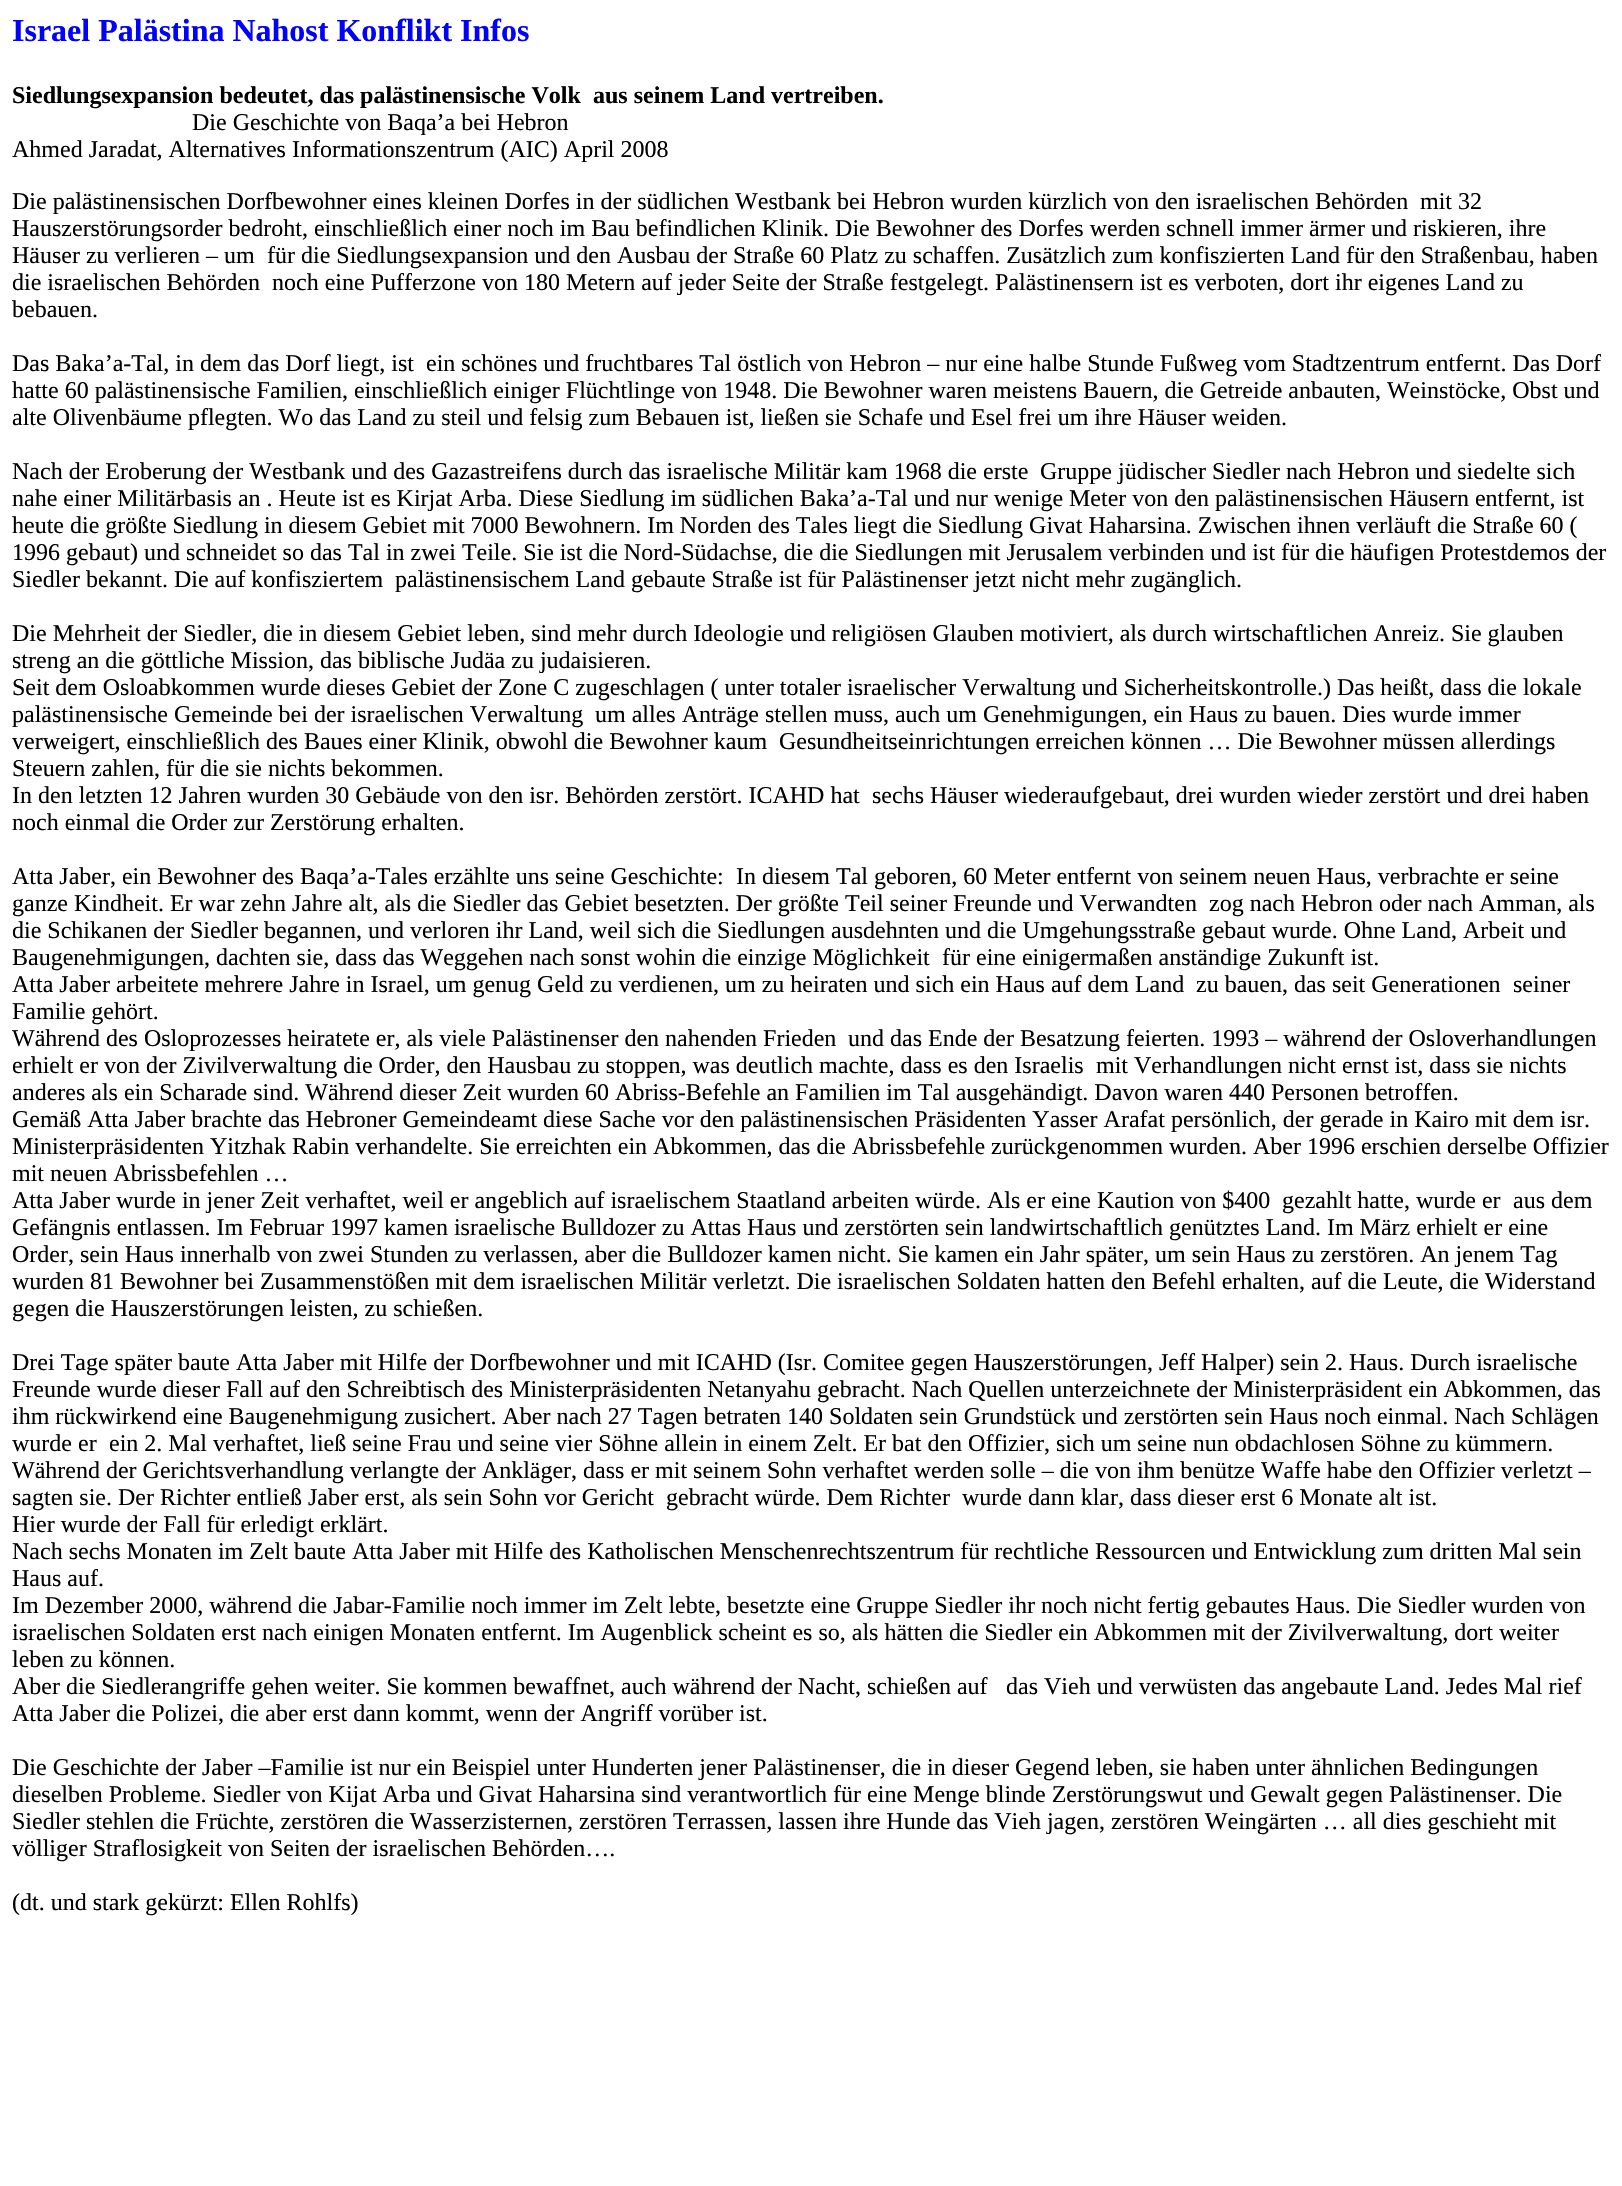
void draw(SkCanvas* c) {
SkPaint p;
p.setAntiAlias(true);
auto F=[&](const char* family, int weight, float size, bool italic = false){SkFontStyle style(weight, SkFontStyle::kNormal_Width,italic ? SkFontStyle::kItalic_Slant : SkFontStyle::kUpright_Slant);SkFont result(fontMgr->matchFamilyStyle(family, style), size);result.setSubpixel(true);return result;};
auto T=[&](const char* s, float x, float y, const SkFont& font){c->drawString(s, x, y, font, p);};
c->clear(0xffffffff);
auto f1 = F("Liberation Serif",700,32);
p.setColor(0xff0000ff);
T("Israel Palästina Nahost Konflikt Infos",12,41,f1);
auto f2 = F("Liberation Serif",700,24);
p.setColor(0xff000000);
T("Siedlungsexpansion bedeutet, das palästinensische Volk",12,103,f2);
T("aus seinem Land vertreiben.",593,103,f2);
auto f3 = F("Liberation Serif",400,24);
T("Die Geschichte von Baqa’a bei Hebron",192,130,f3);
T("Ahmed Jaradat, Alternatives Informationszentrum (AIC) April 2008",12,157,f3);
T("Die palästinensischen Dorfbewohner eines kleinen Dorfes in der südlichen Westbank bei Hebron wurden kürzlich von den israelischen Behörden",12,209,f3);
T("mit 32",1420,209,f3);
T("Hauszerstörungsorder bedroht, einschließlich einer noch im Bau befindlichen Klinik. Die Bewohner des Dorfes werden schnell immer ärmer und riskieren, ihre",12,236,f3);
T("Häuser zu verlieren – um",12,263,f3);
T("für die Siedlungsexpansion und den Ausbau der Straße 60 Platz zu schaffen. Zusätzlich zum konfiszierten Land für den Straßenbau, haben",267,263,f3);
T("die israelischen Behörden",12,290,f3);
T("noch eine Pufferzone von 180 Metern auf jeder Seite der Straße festgelegt. Palästinensern ist es verboten, dort ihr eigenes Land zu",272,290,f3);
T("bebauen.",12,317,f3);
T("Das Baka’a-Tal, in dem das Dorf liegt, ist",12,371,f3);
T("ein schönes und fruchtbares Tal östlich von Hebron – nur eine halbe Stunde Fußweg vom Stadtzentrum entfernt. Das Dorf",426,371,f3);
T("hatte 60 palästinensische Familien, einschließlich einiger Flüchtlinge von 1948. Die Bewohner waren meistens Bauern, die Getreide anbauten, Weinstöcke, Obst und",12,398,f3);
T("alte Olivenbäume pflegten. Wo das Land zu steil und felsig zum Bebauen ist, ließen sie Schafe und Esel frei um ihre Häuser weiden.",12,425,f3);
T("Nach der Eroberung der Westbank und des Gazastreifens durch das israelische Militär kam 1968 die erste",12,479,f3);
T("Gruppe jüdischer Siedler nach Hebron und siedelte sich",1040,479,f3);
T("nahe einer Militärbasis an . Heute ist es Kirjat Arba. Diese Siedlung im südlichen Baka’a-Tal und nur wenige Meter von den palästinensischen Häusern entfernt, ist",12,506,f3);
T("heute die größte Siedlung in diesem Gebiet mit 7000 Bewohnern. Im Norden des Tales liegt die Siedlung Givat Haharsina. Zwischen ihnen verläuft die Straße 60 (",12,533,f3);
T("1996 gebaut) und schneidet so das Tal in zwei Teile. Sie ist die Nord-Südachse, die die Siedlungen mit Jerusalem verbinden und ist für die häufigen Protestdemos der",12,560,f3);
T("Siedler bekannt. Die auf konfisziertem",12,587,f3);
T("palästinensischem Land gebaute Straße ist für Palästinenser jetzt nicht mehr zugänglich.",395,587,f3);
T("Die Mehrheit der Siedler, die in diesem Gebiet leben, sind mehr durch Ideologie und religiösen Glauben motiviert, als durch wirtschaftlichen Anreiz. Sie glauben",12,641,f3);
T("streng an die göttliche Mission, das biblische Judäa zu judaisieren.",12,668,f3);
T("Seit dem Osloabkommen wurde dieses Gebiet der Zone C zugeschlagen ( unter totaler israelischer Verwaltung und Sicherheitskontrolle.) Das heißt, dass die lokale",12,695,f3);
T("palästinensische Gemeinde bei der israelischen Verwaltung",12,722,f3);
T("um alles Anträge stellen muss, auch um Genehmigungen, ein Haus zu bauen. Dies wurde immer",595,722,f3);
T("verweigert, einschließlich des Baues einer Klinik, obwohl die Bewohner kaum",12,749,f3);
T("Gesundheitseinrichtungen erreichen können … Die Bewohner müssen allerdings",779,749,f3);
T("Steuern zahlen, für die sie nichts bekommen.",12,776,f3);
T("In den letzten 12 Jahren wurden 30 Gebäude von den isr. Behörden zerstört. ICAHD hat",12,803,f3);
T("sechs Häuser wiederaufgebaut, drei wurden wieder zerstört und drei haben",872,803,f3);
T("noch einmal die Order zur Zerstörung erhalten.",12,830,f3);
T("Atta Jaber, ein Bewohner des Baqa’a-Tales erzählte uns seine Geschichte:",12,884,f3);
T("In diesem Tal geboren, 60 Meter entfernt von seinem neuen Haus, verbrachte er seine",736,884,f3);
T("ganze Kindheit. Er war zehn Jahre alt, als die Siedler das Gebiet besetzten. Der größte Teil seiner Freunde und Verwandten",12,911,f3);
T("zog nach Hebron oder nach Amman, als",1209,911,f3);
T("die Schikanen der Siedler begannen, und verloren ihr Land, weil sich die Siedlungen ausdehnten und die Umgehungsstraße gebaut wurde. Ohne Land, Arbeit und",12,938,f3);
T("Baugenehmigungen, dachten sie, dass das Weggehen nach sonst wohin die einzige Möglichkeit",12,965,f3);
T("für eine einigermaßen anständige Zukunft ist.",942,965,f3);
T("Atta Jaber arbeitete mehrere Jahre in Israel, um genug Geld zu verdienen, um zu heiraten und sich ein Haus auf dem Land",12,992,f3);
T("zu bauen, das seit Generationen",1196,992,f3);
T("seiner",1513,992,f3);
T("Familie gehört.",12,1019,f3);
T("Während des Osloprozesses heiratete er, als viele Palästinenser den nahenden Frieden",12,1046,f3);
T("und das Ende der Besatzung feierten. 1993 – während der Osloverhandlungen",848,1046,f3);
T("erhielt er von der Zivilverwaltung die Order, den Hausbau zu stoppen, was deutlich machte, dass es den Israelis",12,1073,f3);
T("mit Verhandlungen nicht ernst ist, dass sie nichts",1096,1073,f3);
T("anderes als ein Scharade sind. Während dieser Zeit wurden 60 Abriss-Befehle an Familien im Tal ausgehändigt. Davon waren 440 Personen betroffen.",12,1100,f3);
T("Gemäß Atta Jaber brachte das Hebroner Gemeindeamt diese Sache vor den palästinensischen Präsidenten Yasser Arafat persönlich, der gerade in Kairo mit dem isr.",12,1127,f3);
T("Ministerpräsidenten Yitzhak Rabin verhandelte. Sie erreichten ein Abkommen, das die Abrissbefehle zurückgenommen wurden. Aber 1996 erschien derselbe Offizier",12,1154,f3);
T("mit neuen Abrissbefehlen …",12,1181,f3);
T("Atta Jaber wurde in jener Zeit verhaftet, weil er angeblich auf israelischem Staatland arbeiten würde. Als er eine Kaution von $400",12,1208,f3);
T("gezahlt hatte, wurde er",1282,1208,f3);
T("aus dem",1513,1208,f3);
T("Gefängnis entlassen. Im Februar 1997 kamen israelische Bulldozer zu Attas Haus und zerstörten sein landwirtschaftlich genütztes Land. Im März erhielt er eine",12,1235,f3);
T("Order, sein Haus innerhalb von zwei Stunden zu verlassen, aber die Bulldozer kamen nicht. Sie kamen ein Jahr später, um sein Haus zu zerstören. An jenem Tag",12,1262,f3);
T("wurden 81 Bewohner bei Zusammenstößen mit dem israelischen Militär verletzt. Die israelischen Soldaten hatten den Befehl erhalten, auf die Leute, die Widerstand",12,1289,f3);
T("gegen die Hauszerstörungen leisten, zu schießen.",12,1316,f3);
T("Drei Tage später baute Atta Jaber mit Hilfe der Dorfbewohner und mit ICAHD (Isr. Comitee gegen Hauszerstörungen, Jeff Halper) sein 2. Haus. Durch israelische",12,1370,f3);
T("Freunde wurde dieser Fall auf den Schreibtisch des Ministerpräsidenten Netanyahu gebracht. Nach Quellen unterzeichnete der Ministerpräsident ein Abkommen, das",12,1397,f3);
T("ihm rückwirkend eine Baugenehmigung zusichert. Aber nach 27 Tagen betraten 140 Soldaten sein Grundstück und zerstörten sein Haus noch einmal. Nach Schlägen",12,1424,f3);
T("wurde er",12,1451,f3);
T("ein 2. Mal verhaftet, ließ seine Frau und seine vier Söhne allein in einem Zelt. Er bat den Offizier, sich um seine nun obdachlosen Söhne zu kümmern.",109,1451,f3);
T("Während der Gerichtsverhandlung verlangte der Ankläger, dass er mit seinem Sohn verhaftet werden solle – die von ihm benütze Waffe habe den Offizier verletzt –",12,1478,f3);
T("sagten sie. Der Richter entließ Jaber erst, als sein Sohn vor Gericht",12,1505,f3);
T("gebracht würde. Dem Richter",666,1505,f3);
T("wurde dann klar, dass dieser erst 6 Monate alt ist.",962,1505,f3);
T("Hier wurde der Fall für erledigt erklärt.",12,1532,f3);
T("Nach sechs Monaten im Zelt baute Atta Jaber mit Hilfe des Katholischen Menschenrechtszentrum für rechtliche Ressourcen und Entwicklung zum dritten Mal sein",12,1559,f3);
T("Haus auf.",12,1586,f3);
T("Im Dezember 2000, während die Jabar-Familie noch immer im Zelt lebte, besetzte eine Gruppe Siedler ihr noch nicht fertig gebautes Haus. Die Siedler wurden von",12,1613,f3);
T("israelischen Soldaten erst nach einigen Monaten entfernt. Im Augenblick scheint es so, als hätten die Siedler ein Abkommen mit der Zivilverwaltung, dort weiter",12,1640,f3);
T("leben zu können.",12,1667,f3);
T("Aber die Siedlerangriffe gehen weiter. Sie kommen bewaffnet, auch während der Nacht, schießen auf",12,1694,f3);
T("das Vieh und verwüsten das angebaute Land. Jedes Mal rief",1006,1694,f3);
T("Atta Jaber die Polizei, die aber erst dann kommt, wenn der Angriff vorüber ist.",12,1721,f3);
T("Die Geschichte der Jaber –Familie ist nur ein Beispiel unter Hunderten jener Palästinenser, die in dieser Gegend leben, sie haben unter ähnlichen Bedingungen",12,1775,f3);
T("dieselben Probleme. Siedler von Kijat Arba und Givat Haharsina sind verantwortlich für eine Menge blinde Zerstörungswut und Gewalt gegen Palästinenser. Die",12,1802,f3);
T("Siedler stehlen die Früchte, zerstören die Wasserzisternen, zerstören Terrassen, lassen ihre Hunde das Vieh jagen, zerstören Weingärten … all dies geschieht mit",12,1829,f3);
T("völliger Straflosigkeit von Seiten der israelischen Behörden….",12,1856,f3);
T("(dt. und stark gekürzt: Ellen Rohlfs)",12,1910,f3);
}
